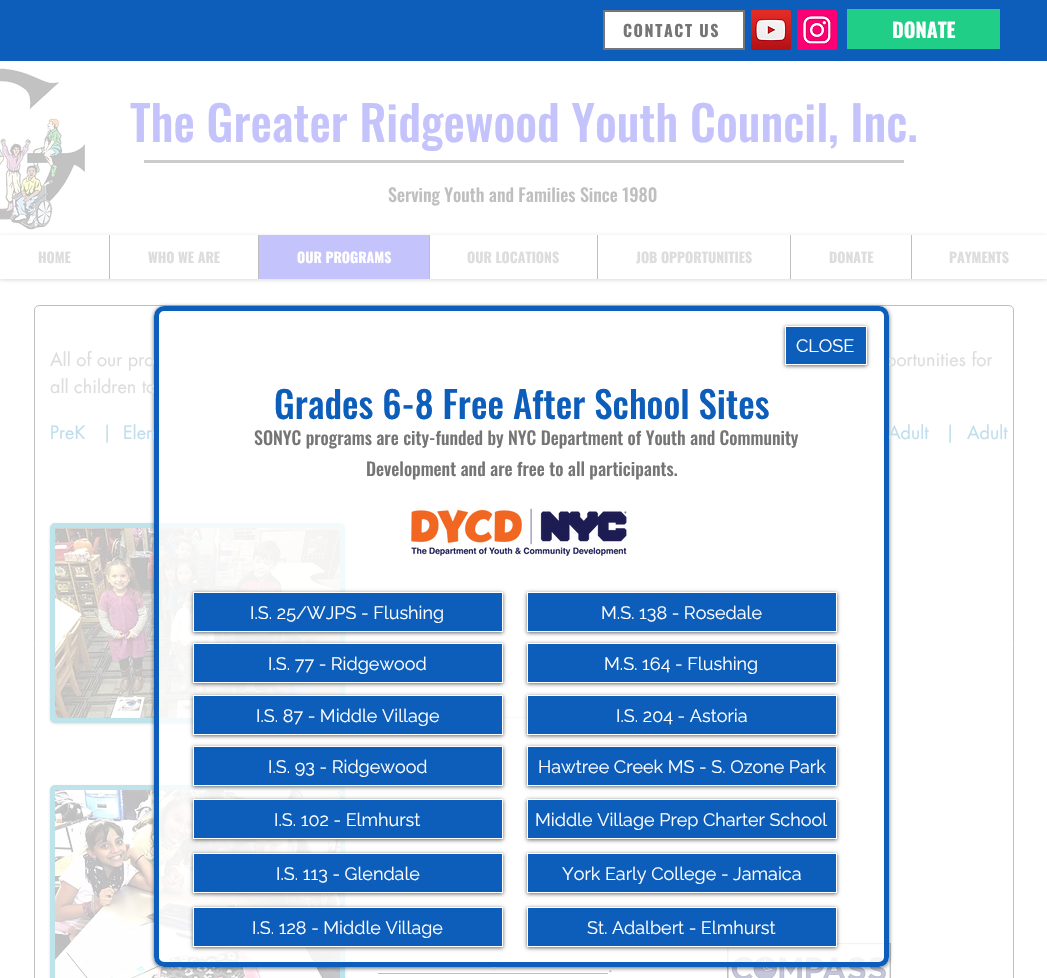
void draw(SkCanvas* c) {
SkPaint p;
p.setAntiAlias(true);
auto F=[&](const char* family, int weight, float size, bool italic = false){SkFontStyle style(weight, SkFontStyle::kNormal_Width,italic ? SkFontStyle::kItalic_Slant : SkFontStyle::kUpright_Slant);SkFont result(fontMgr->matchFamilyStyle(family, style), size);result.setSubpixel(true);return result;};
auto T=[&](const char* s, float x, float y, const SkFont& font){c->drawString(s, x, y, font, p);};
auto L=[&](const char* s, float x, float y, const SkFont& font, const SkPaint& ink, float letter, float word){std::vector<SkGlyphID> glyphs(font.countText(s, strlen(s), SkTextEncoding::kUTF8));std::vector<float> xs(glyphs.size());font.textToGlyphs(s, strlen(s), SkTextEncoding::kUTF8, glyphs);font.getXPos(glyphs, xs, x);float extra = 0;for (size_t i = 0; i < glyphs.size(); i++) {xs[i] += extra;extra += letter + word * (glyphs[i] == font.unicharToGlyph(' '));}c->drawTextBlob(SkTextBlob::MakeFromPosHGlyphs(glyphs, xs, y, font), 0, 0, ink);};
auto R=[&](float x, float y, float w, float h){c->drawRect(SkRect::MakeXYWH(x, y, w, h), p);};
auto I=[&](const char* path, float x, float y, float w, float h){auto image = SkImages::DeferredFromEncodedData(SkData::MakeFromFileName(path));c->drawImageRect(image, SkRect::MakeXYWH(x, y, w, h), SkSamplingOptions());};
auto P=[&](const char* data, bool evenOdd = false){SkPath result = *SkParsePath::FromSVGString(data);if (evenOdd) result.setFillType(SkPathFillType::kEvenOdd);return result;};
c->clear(0xffffffff);
p.setColor(0xff0d5eba);
R(0,0,1047,61);
p.setColor(0xffffffff);
c->drawRect(SkRect::MakeXYWH(604,11,140,38),p);
p.setStroke(true);
p.setStrokeWidth(2);
p.setColor(0xff757575);
c->drawRect(SkRect::MakeXYWH(604,11,140,38),p);
auto f1 = F("Oswald",700,16);
p.setStroke(false);
L("CONTACT US",623,37,f1,p,1.6,0);
I("1.png",751,10,40,40);
I("2.png",797,10,40,40);
p.setColor(0xff20ce88);
R(847,9,153,40);
auto f2 = F("Oswald",700,20);
p.setColor(0xffffffff);
T("DONATE",892,38,f2);
I("3.png",0,68,86,162);
auto f3 = F("Oswald",500,48);
p.setColor(0xffc5c3fc);
T("The Greater Ridgewood Youth Council, Inc.",130,142,f3);
p.setColor(0xffcccccc);
R(144,160,760,3);
auto f4 = F("Oswald",500,18);
p.setColor(0xffbfbfbf);
T("Serving Youth and Families Since 1980",388,202,f4);
c->save();
c->clipPath(P("M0 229h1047v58h-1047zm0 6h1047v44h-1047z",true),true);
p.setColor(0x99bfbfbf);
p.setMaskFilter(SkMaskFilter::MakeBlur(kNormal_SkBlurStyle, 2));
c->drawRect(SkRect::MakeXYWH(0,236,1047,44),p);
p.setMaskFilter(nullptr);
c->restore();
auto f5 = F("Oswald",700,14);
p.setColor(0xffdddddd);
T("HOME",38,263,f5);
p.setColor(0xffbfbfbf);
R(109,235,1,44);
p.setColor(0xffdddddd);
T("WHO WE ARE",148,263,f5);
p.setColor(0xffc5c3fc);
R(259,235,170,44);
p.setColor(0xffbfbfbf);
R(258,235,1,44);
p.setColor(0xffffffff);
T("OUR PROGRAMS",297,263,f5);
p.setColor(0xffbfbfbf);
R(429,235,1,44);
p.setColor(0xffdddddd);
T("OUR LOCATIONS",467,263,f5);
p.setColor(0xffbfbfbf);
R(597,235,1,44);
p.setColor(0xffdddddd);
T("JOB OPPORTUNITIES",636,263,f5);
p.setColor(0xffbfbfbf);
R(790,235,1,44);
p.setColor(0xffdddddd);
T("DONATE",829,263,f5);
p.setColor(0xffbfbfbf);
R(911,235,1,44);
p.setColor(0xffdddddd);
T("PAYMENTS",949,263,f5);
p.setStroke(true);
p.setStrokeWidth(1);
p.setColor(0xffbfbfbf);
c->drawRoundRect(SkRect::MakeXYWH(34.5,305.5,979,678),4.5,4.5,p);
p.setStroke(false);
p.setColor(0x80bfbfbf);
p.setMaskFilter(SkMaskFilter::MakeBlur(kNormal_SkBlurStyle, 1.5));
c->drawRoundRect(SkRect::MakeXYWH(50,524,295,200),5,5,p);
p.setMaskFilter(nullptr);
p.setStroke(true);
p.setStrokeWidth(5);
p.setColor(0xffbfe3eb);
c->drawRoundRect(SkRect::MakeXYWH(52.5,525.5,290,195),2.5,2.5,p);
I("5.png",55,528,285,190);
p.setStroke(false);
p.setColor(0xffdddddd);
R(503,717,24,1);
p.setColor(0x80bfbfbf);
p.setMaskFilter(SkMaskFilter::MakeBlur(kNormal_SkBlurStyle, 1.5));
c->drawRoundRect(SkRect::MakeXYWH(50,786,295,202),5,5,p);
p.setMaskFilter(nullptr);
p.setStroke(true);
p.setColor(0xffbfe3eb);
c->drawRoundRect(SkRect::MakeXYWH(52.5,787.5,290,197),2.5,2.5,p);
I("6.png",55,790,285,188);
p.setStroke(false);
p.setColor(0xffbfbfbf);
R(378,973,230,1);
I("7.png",727,943,164,35);
c->save();
c->clipPath(P("M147 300h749v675h-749zm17 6h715c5.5 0 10 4.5 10 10v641c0 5.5-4.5 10-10 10h-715c-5.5 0-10-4.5-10-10v-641c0-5.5 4.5-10 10-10z",true),true);
p.setColor(0x99000000);
p.setMaskFilter(SkMaskFilter::MakeBlur(kNormal_SkBlurStyle, 2));
c->drawRoundRect(SkRect::MakeXYWH(154,307,735,661),10,10,p);
p.setMaskFilter(nullptr);
c->restore();
auto f6 = F("futura",400,18);
p.setColor(0xffdddddd);
T("portunities for",886,366,f6);
T("all children to",50,393,f6);
p.setColor(0xffc0deed);
T("Elem",123,439,f6);
T("Adult",888,439,f6);
p.setColor(0xccffffff);
c->drawRoundRect(SkRect::MakeXYWH(156.5,308.5,730,656),7.5,7.5,p);
p.setStroke(true);
p.setColor(0xff0d5eba);
c->drawRoundRect(SkRect::MakeXYWH(156.5,308.5,730,656),7.5,7.5,p);
p.setStroke(false);
p.setColor(0x99000000);
p.setMaskFilter(SkMaskFilter::MakeBlur(kNormal_SkBlurStyle, 2));
c->drawRect(SkRect::MakeXYWH(785,327,82,39),p);
p.setMaskFilter(nullptr);
p.setColor(0xff0d5eba);
c->drawRect(SkRect::MakeXYWH(785.5,326.5,81,38),p);
p.setStroke(true);
p.setStrokeWidth(1);
p.setColor(0xffffffff);
c->drawRect(SkRect::MakeXYWH(785.5,326.5,81,38),p);
auto f7 = F("Raleway",400,18);
p.setStroke(false);
T("CLOSE",796,352,f7);
auto f8 = F("Oswald",500,37);
p.setColor(0xff0d5eba);
T("Grades 6-8 Free After School Sites",274,419,f8);
p.setColor(0xff757575);
T("SONYC programs are city-funded by NYC Department of Youth and Community",254,445,f4);
T("Development and are free to all participants.",366,476,f4);
I("4.png",411,508,216,48);
p.setColor(0x99000000);
p.setMaskFilter(SkMaskFilter::MakeBlur(kNormal_SkBlurStyle, 2));
c->drawRect(SkRect::MakeXYWH(193,593,310,40),p);
p.setMaskFilter(nullptr);
p.setColor(0xff0d5eba);
c->drawRect(SkRect::MakeXYWH(193.5,592.5,309,39),p);
p.setStroke(true);
p.setColor(0xffffffff);
c->drawRect(SkRect::MakeXYWH(193.5,592.5,309,39),p);
p.setStroke(false);
T("I.S. 25/WJPS - Flushing",250,619,f7);
p.setColor(0x99000000);
p.setMaskFilter(SkMaskFilter::MakeBlur(kNormal_SkBlurStyle, 2));
c->drawRect(SkRect::MakeXYWH(527,593,310,40),p);
p.setMaskFilter(nullptr);
p.setColor(0xff0d5eba);
c->drawRect(SkRect::MakeXYWH(527.5,592.5,309,39),p);
p.setStroke(true);
p.setColor(0xffffffff);
c->drawRect(SkRect::MakeXYWH(527.5,592.5,309,39),p);
p.setStroke(false);
T("M.S. 138 - Rosedale",601,619,f7);
p.setColor(0x99000000);
p.setMaskFilter(SkMaskFilter::MakeBlur(kNormal_SkBlurStyle, 2));
c->drawRect(SkRect::MakeXYWH(193,644,310,40),p);
p.setMaskFilter(nullptr);
p.setColor(0xff0d5eba);
c->drawRect(SkRect::MakeXYWH(193.5,643.5,309,39),p);
p.setStroke(true);
p.setColor(0xffffffff);
c->drawRect(SkRect::MakeXYWH(193.5,643.5,309,39),p);
p.setStroke(false);
T("I.S. 77 - Ridgewood",268,670,f7);
p.setColor(0x99000000);
p.setMaskFilter(SkMaskFilter::MakeBlur(kNormal_SkBlurStyle, 2));
c->drawRect(SkRect::MakeXYWH(527,644,310,40),p);
p.setMaskFilter(nullptr);
p.setColor(0xff0d5eba);
c->drawRect(SkRect::MakeXYWH(527.5,643.5,309,39),p);
p.setStroke(true);
p.setColor(0xffffffff);
c->drawRect(SkRect::MakeXYWH(527.5,643.5,309,39),p);
p.setStroke(false);
T("M.S. 164 - Flushing",604,670,f7);
p.setColor(0x99000000);
p.setMaskFilter(SkMaskFilter::MakeBlur(kNormal_SkBlurStyle, 2));
c->drawRect(SkRect::MakeXYWH(193,696,310,40),p);
p.setMaskFilter(nullptr);
p.setColor(0xff0d5eba);
c->drawRect(SkRect::MakeXYWH(193.5,695.5,309,39),p);
p.setStroke(true);
p.setColor(0xffffffff);
c->drawRect(SkRect::MakeXYWH(193.5,695.5,309,39),p);
p.setStroke(false);
T("I.S. 87 - Middle Village",256,722,f7);
p.setColor(0x99000000);
p.setMaskFilter(SkMaskFilter::MakeBlur(kNormal_SkBlurStyle, 2));
c->drawRect(SkRect::MakeXYWH(527,696,310,40),p);
p.setMaskFilter(nullptr);
p.setColor(0xff0d5eba);
c->drawRect(SkRect::MakeXYWH(527.5,695.5,309,39),p);
p.setStroke(true);
p.setColor(0xffffffff);
c->drawRect(SkRect::MakeXYWH(527.5,695.5,309,39),p);
p.setStroke(false);
T("I.S. 204 - Astoria",616,722,f7);
p.setColor(0x99000000);
p.setMaskFilter(SkMaskFilter::MakeBlur(kNormal_SkBlurStyle, 2));
c->drawRect(SkRect::MakeXYWH(193,747,310,40),p);
p.setMaskFilter(nullptr);
p.setColor(0xff0d5eba);
c->drawRect(SkRect::MakeXYWH(193.5,746.5,309,39),p);
p.setStroke(true);
p.setColor(0xffffffff);
c->drawRect(SkRect::MakeXYWH(193.5,746.5,309,39),p);
p.setStroke(false);
T("I.S. 93 - Ridgewood",268,773,f7);
p.setColor(0x99000000);
p.setMaskFilter(SkMaskFilter::MakeBlur(kNormal_SkBlurStyle, 2));
c->drawRect(SkRect::MakeXYWH(527,747,310,40),p);
p.setMaskFilter(nullptr);
p.setColor(0xff0d5eba);
c->drawRect(SkRect::MakeXYWH(527.5,746.5,309,39),p);
p.setStroke(true);
p.setColor(0xffffffff);
c->drawRect(SkRect::MakeXYWH(527.5,746.5,309,39),p);
p.setStroke(false);
T("Hawtree Creek MS - S. Ozone Park",538,773,f7);
p.setColor(0x99000000);
p.setMaskFilter(SkMaskFilter::MakeBlur(kNormal_SkBlurStyle, 2));
c->drawRect(SkRect::MakeXYWH(193,800,310,40),p);
p.setMaskFilter(nullptr);
p.setColor(0xff0d5eba);
c->drawRect(SkRect::MakeXYWH(193.5,799.5,309,39),p);
p.setStroke(true);
p.setColor(0xffffffff);
c->drawRect(SkRect::MakeXYWH(193.5,799.5,309,39),p);
p.setStroke(false);
T("I.S. 102 - Elmhurst",274,826,f7);
p.setColor(0x99000000);
p.setMaskFilter(SkMaskFilter::MakeBlur(kNormal_SkBlurStyle, 2));
c->drawRect(SkRect::MakeXYWH(527,800,310,40),p);
p.setMaskFilter(nullptr);
p.setColor(0xff0d5eba);
c->drawRect(SkRect::MakeXYWH(527.5,799.5,309,39),p);
p.setStroke(true);
p.setColor(0xffffffff);
c->drawRect(SkRect::MakeXYWH(527.5,799.5,309,39),p);
p.setStroke(false);
T("Middle Village Prep Charter School",535,826,f7);
p.setColor(0x99000000);
p.setMaskFilter(SkMaskFilter::MakeBlur(kNormal_SkBlurStyle, 2));
c->drawRect(SkRect::MakeXYWH(193,854,310,40),p);
p.setMaskFilter(nullptr);
p.setColor(0xff0d5eba);
c->drawRect(SkRect::MakeXYWH(193.5,853.5,309,39),p);
p.setStroke(true);
p.setColor(0xffffffff);
c->drawRect(SkRect::MakeXYWH(193.5,853.5,309,39),p);
p.setStroke(false);
T("I.S. 113 - Glendale",276,880,f7);
p.setColor(0x99000000);
p.setMaskFilter(SkMaskFilter::MakeBlur(kNormal_SkBlurStyle, 2));
c->drawRect(SkRect::MakeXYWH(527,854,310,40),p);
p.setMaskFilter(nullptr);
p.setColor(0xff0d5eba);
c->drawRect(SkRect::MakeXYWH(527.5,853.5,309,39),p);
p.setStroke(true);
p.setColor(0xffffffff);
c->drawRect(SkRect::MakeXYWH(527.5,853.5,309,39),p);
p.setStroke(false);
T("York Early College - Jamaica",562,880,f7);
p.setColor(0x99000000);
p.setMaskFilter(SkMaskFilter::MakeBlur(kNormal_SkBlurStyle, 2));
c->drawRect(SkRect::MakeXYWH(193,908,310,40),p);
p.setMaskFilter(nullptr);
p.setColor(0xff0d5eba);
c->drawRect(SkRect::MakeXYWH(193.5,907.5,309,39),p);
p.setStroke(true);
p.setColor(0xffffffff);
c->drawRect(SkRect::MakeXYWH(193.5,907.5,309,39),p);
p.setStroke(false);
T("I.S. 128 - Middle Village",252,934,f7);
p.setColor(0x99000000);
p.setMaskFilter(SkMaskFilter::MakeBlur(kNormal_SkBlurStyle, 2));
c->drawRect(SkRect::MakeXYWH(527,908,310,40),p);
p.setMaskFilter(nullptr);
p.setColor(0xff0d5eba);
c->drawRect(SkRect::MakeXYWH(527.5,907.5,309,39),p);
p.setStroke(true);
p.setColor(0xffffffff);
c->drawRect(SkRect::MakeXYWH(527.5,907.5,309,39),p);
p.setStroke(false);
T("St. Adalbert - Elmhurst",587,934,f7);
p.setColor(0xffdddddd);
T("All of our pro",50,366,f6);
p.setColor(0xffc0deed);
T("PreK",50,439,f6);
T("|",102,439,f6);
T("|",945,439,f6);
T("Adult",967,439,f6);
auto f9 = F("futura",700,14);
p.setColor(0xffbfbfbf);
T("-",493,972,f9);
T(".",608,972,f9);
}
